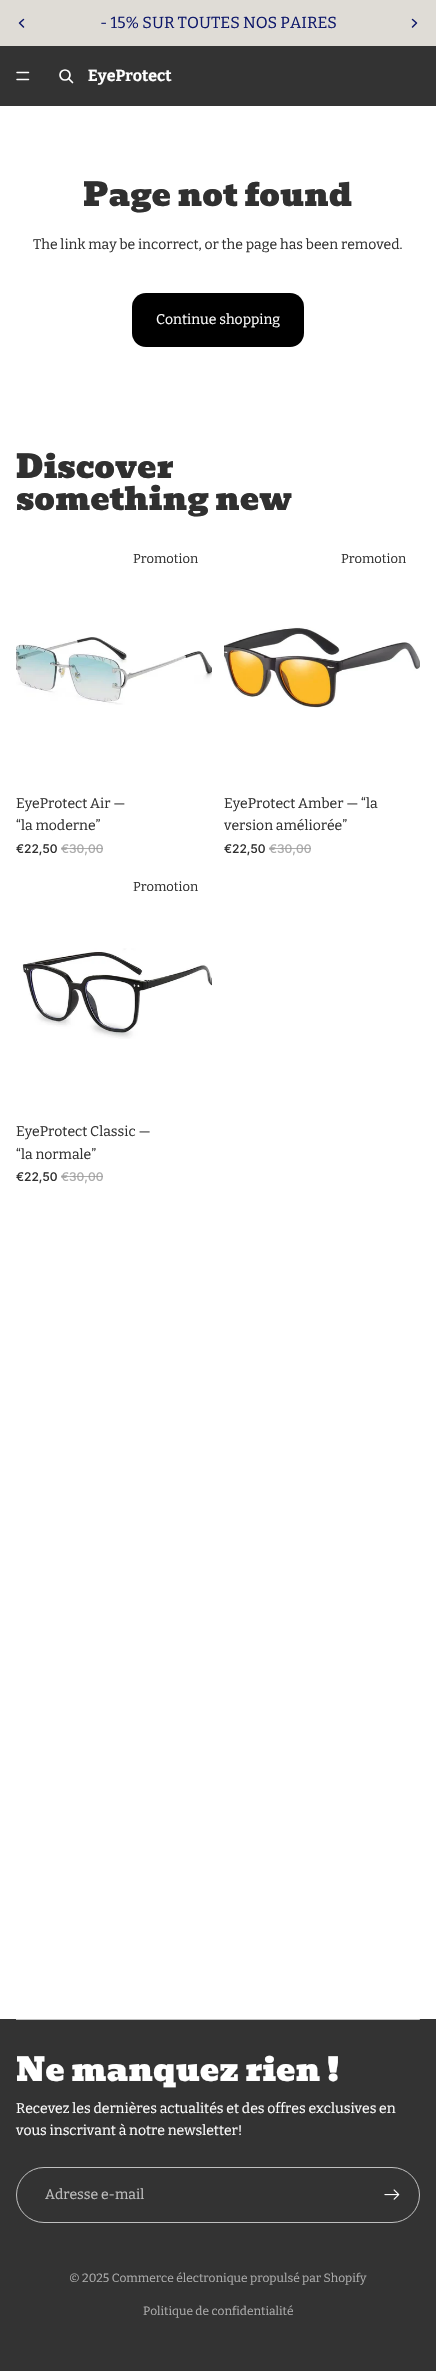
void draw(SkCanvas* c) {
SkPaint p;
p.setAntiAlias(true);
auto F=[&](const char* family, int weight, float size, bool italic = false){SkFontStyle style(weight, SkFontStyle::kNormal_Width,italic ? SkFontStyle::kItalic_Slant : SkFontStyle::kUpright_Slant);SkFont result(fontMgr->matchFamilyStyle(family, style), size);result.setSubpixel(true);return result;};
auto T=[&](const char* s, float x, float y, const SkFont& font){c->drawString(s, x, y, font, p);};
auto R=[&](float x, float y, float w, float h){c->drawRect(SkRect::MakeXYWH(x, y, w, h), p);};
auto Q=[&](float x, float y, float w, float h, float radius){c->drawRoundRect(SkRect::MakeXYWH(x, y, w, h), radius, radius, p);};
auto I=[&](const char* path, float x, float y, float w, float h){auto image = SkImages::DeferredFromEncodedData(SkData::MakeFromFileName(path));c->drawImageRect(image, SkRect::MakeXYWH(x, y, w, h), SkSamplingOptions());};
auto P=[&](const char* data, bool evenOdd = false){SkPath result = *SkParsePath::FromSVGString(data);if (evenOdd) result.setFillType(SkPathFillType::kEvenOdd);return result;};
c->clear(0xffffffff);
p.setColor(0xffdfdcd6);
R(0,0,436,46);
auto f1 = F("Bitter",400,16);
p.setColor(0xff0d176a);
T("- 15% SUR TOUTES NOS PAIRES",100,28,f1);
p.setStroke(true);
p.setStrokeWidth(1.5);
p.setStrokeCap(SkPaint::kRound_Cap);
p.setStrokeJoin(SkPaint::kRound_Join);
c->drawPath(P("M23.5 19.5l-4 3.5l4 4"),p);
c->drawPath(P("M412.5 19.5l4 3.5l-4 4"),p);
p.setStroke(false);
p.setColor(0xff333333);
R(0,46,436,60);
p.setStroke(true);
p.setStrokeJoin(SkPaint::kMiter_Join);
p.setColor(0xffffffff);
c->drawPath(P("M17 72.5h11.5m-11.5 7h11.5"),p);
p.setStrokeWidth(1.7);
p.setStrokeCap(SkPaint::kButt_Cap);
c->drawCircle(65,75,5,p);
p.setStrokeCap(SkPaint::kRound_Cap);
p.setStrokeJoin(SkPaint::kRound_Join);
c->drawPath(P("M69 79l3.5 3.5"),p);
auto f2 = F("Bitter",700,16);
p.setStroke(false);
T("EyeProtect",88,81,f2);
auto f3 = F("Bevan",400,32);
p.setColor(0xff303030);
T("Page not found",83,206,f3);
auto f4 = F("Bitter",400,14);
T("The link may be incorrect, or the page has been removed.",33,249,f4);
p.setColor(0xff000000);
Q(132,293,172,54,14);
p.setColor(0xffffffff);
T("Continue shopping",156,324,f4);
p.setColor(0xff303030);
T("Discover",16,478,f3);
T("something new",16,510,f3);
auto f5 = F("Bitter",400,13);
T("Promotion",133,563,f5);
I("1.png",16,637,196,68);
T("EyeProtect Air —",16,808,f4);
T("“la moderne”",16,830,f4);
auto f6 = F("Inter",500,12);
T("€22,50",16,853,f6);
p.setColor(0xffadadad);
T("€30,00",61,853,f6);
p.setColor(0xcf999999);
R(61,848,42,1);
p.setColor(0xff303030);
T("Promotion",341,563,f5);
I("2.png",224,627,196,81);
T("EyeProtect Amber — “la",224,808,f4);
T("version améliorée”",224,830,f4);
T("€22,50",224,853,f6);
p.setColor(0xffadadad);
T("€30,00",269,853,f6);
p.setColor(0xcf999999);
R(269,848,42,1);
p.setColor(0xff303030);
T("Promotion",133,891,f5);
I("3.png",22,948,190,91);
T("EyeProtect Classic —",16,1136,f4);
T("“la normale”",16,1159,f4);
T("€22,50",16,1181,f6);
p.setColor(0xffadadad);
T("€30,00",61,1181,f6);
p.setColor(0xcf999999);
R(61,1176,42,1);
p.setColor(0xff333333);
R(0,2019,436,352);
p.setColor(0xffc0c0c0);
c->drawPath(P("M420 2019v1l-1-1z"),p);
p.setColor(0xb0ffffff);
c->drawPath(P("M420 2020h-404v-1h403z"),p);
p.setColor(0xffffffff);
T("Ne manquez rien !",16,2081,f3);
T("Recevez les dernières actualités et des offres exclusives en",16,2113,f4);
T("vous inscrivant à notre newsletter!",16,2135,f4);
p.setStroke(true);
p.setStrokeWidth(1);
p.setStrokeCap(SkPaint::kButt_Cap);
p.setStrokeJoin(SkPaint::kMiter_Join);
p.setColor(0xffc0c0c0);
c->drawRoundRect(SkRect::MakeXYWH(16.5,2167.5,403,55),27.5,27.5,p);
p.setStroke(false);
p.setColor(0xffc2c2c2);
T("Adresse e-mail",45,2199,f4);
I("4.png",384,2189,16,11);
auto f7 = F("Bitter",400,12);
p.setColor(0xffadadad);
T("© 2025 Commerce électronique propulsé par Shopify",69,2282,f7);
T("Politique de confidentialité",143,2315,f7);
}
